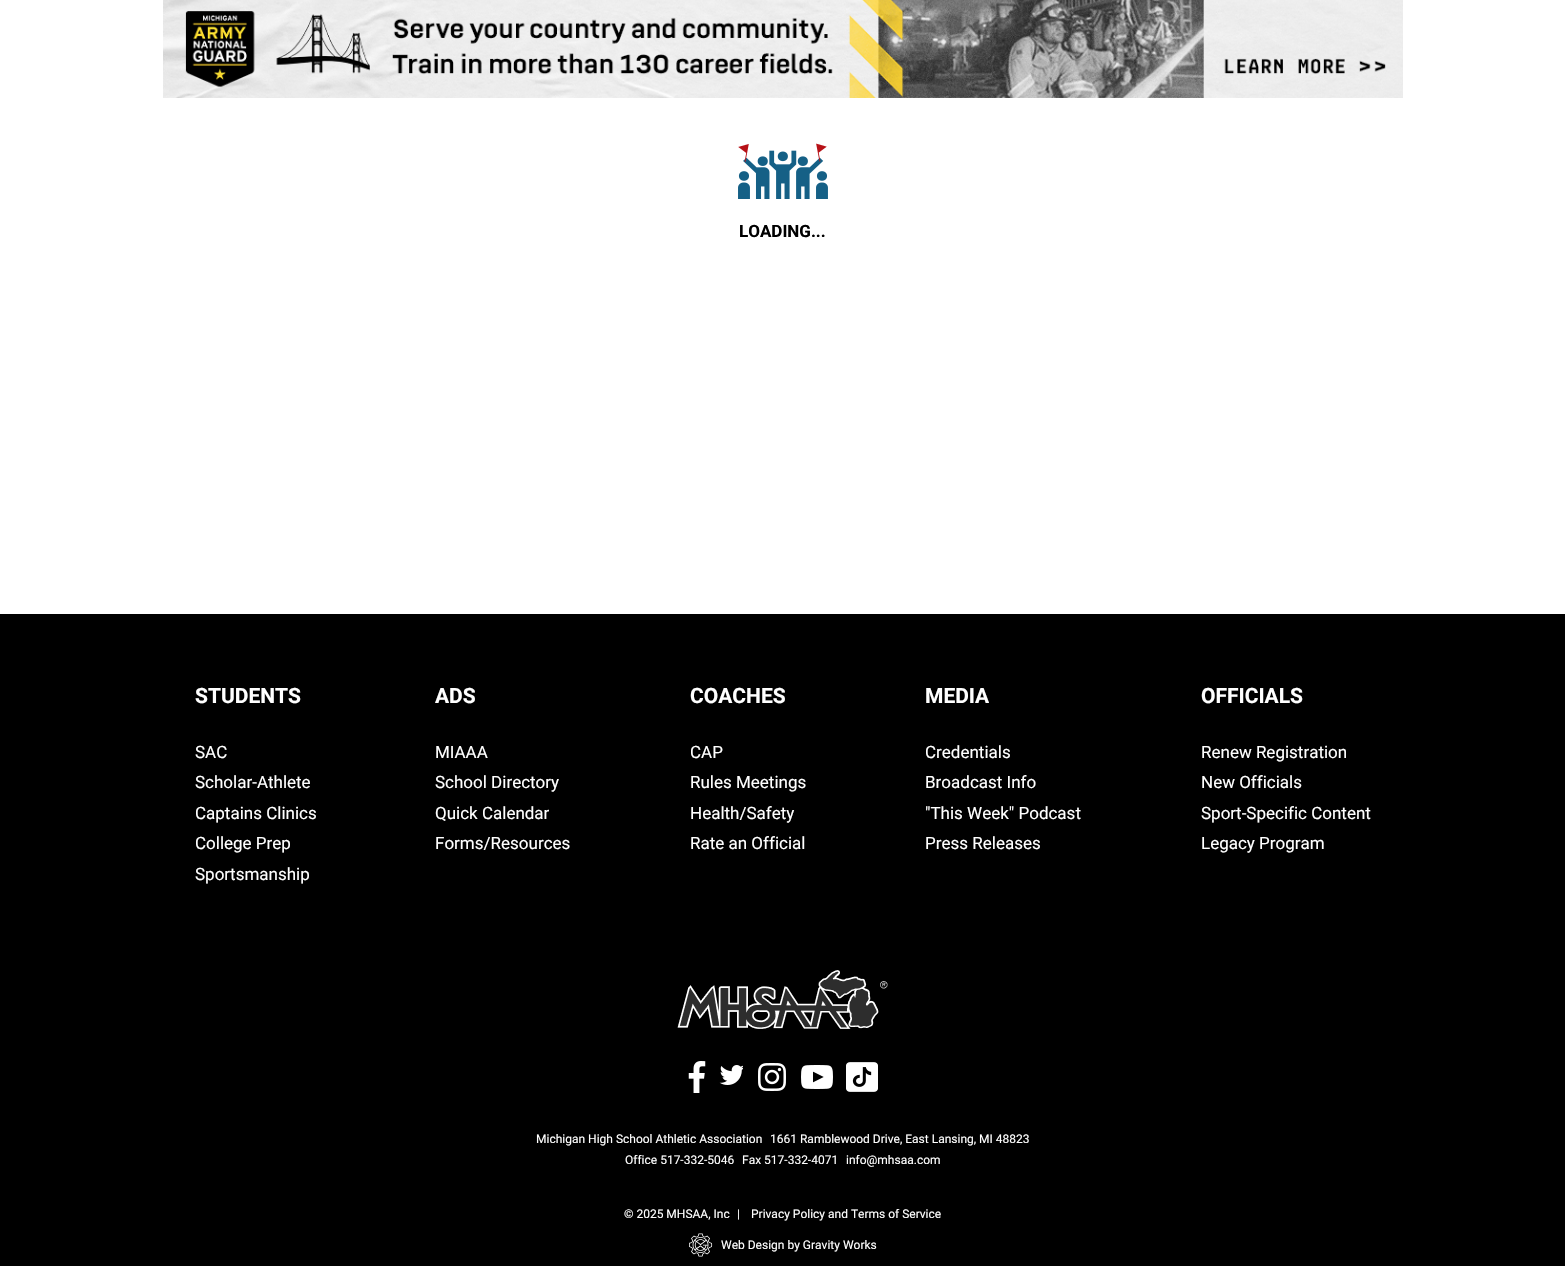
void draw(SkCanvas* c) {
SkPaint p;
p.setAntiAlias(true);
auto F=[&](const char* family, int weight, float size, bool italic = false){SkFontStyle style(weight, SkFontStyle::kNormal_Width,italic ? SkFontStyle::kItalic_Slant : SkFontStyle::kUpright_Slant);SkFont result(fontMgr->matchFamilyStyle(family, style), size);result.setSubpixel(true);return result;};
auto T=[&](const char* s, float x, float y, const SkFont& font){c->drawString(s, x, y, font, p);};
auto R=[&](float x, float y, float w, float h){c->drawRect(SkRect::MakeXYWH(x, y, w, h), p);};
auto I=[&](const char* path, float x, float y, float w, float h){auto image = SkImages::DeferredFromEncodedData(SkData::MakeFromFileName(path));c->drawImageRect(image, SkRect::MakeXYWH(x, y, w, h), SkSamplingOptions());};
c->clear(0xffffffff);
I("1.png",163,0,1240,98);
I("2.png",738,143,90,56);
auto f1 = F("Roboto",700,17);
p.setColor(0xff000000);
T("LOADING...",739,237,f1);
R(0,614,1565,652);
auto f2 = F("Roboto",700,21);
p.setColor(0xffffffff);
T("STUDENTS",195,703,f2);
auto f3 = F("Roboto",400,17);
T("SAC",195,758,f3);
T("Scholar-Athlete",195,788,f3);
T("Captains Clinics",195,819,f3);
T("College Prep",195,849,f3);
T("Sportsmanship",195,880,f3);
T("ADS",435,703,f2);
T("MIAAA",435,758,f3);
T("School Directory",435,788,f3);
T("Quick Calendar",435,819,f3);
T("Forms/Resources",435,849,f3);
T("COACHES",690,703,f2);
T("CAP",690,758,f3);
T("Rules Meetings",690,788,f3);
T("Health/Safety",690,819,f3);
T("Rate an Official",690,849,f3);
T("MEDIA",925,703,f2);
T("Credentials",925,758,f3);
T("Broadcast Info",925,788,f3);
T("\"This Week\" Podcast",925,819,f3);
T("Press Releases",925,849,f3);
T("OFFICIALS",1201,703,f2);
T("Renew Registration",1201,758,f3);
T("New Officials",1201,788,f3);
T("Sport-Specific Content",1201,819,f3);
T("Legacy Program",1201,849,f3);
I("3.png",677,970,211,59);
I("4.png",688,1061,18,32);
I("5.png",719,1065,24,20);
I("6.png",758,1063,28,28);
I("7.png",801,1065,32,24);
I("8.png",846,1062,32,30);
auto f4 = F("Roboto",400,12);
T("Michigan High School Athletic Association",536,1143,f4);
T("1661 Ramblewood Drive, East Lansing, MI 48823",770,1143,f4);
T("Office 517-332-5046",625,1164,f4);
T("Fax 517-332-4071",742,1164,f4);
T("info@mhsaa.com",846,1164,f4);
T("© 2025 MHSAA, Inc",624,1218,f4);
T("|",737,1218,f4);
T("Privacy Policy and Terms of Service",751,1218,f4);
I("9.png",689,1233,24,24);
T("Web Design by Gravity Works",721,1249,f4);
}
